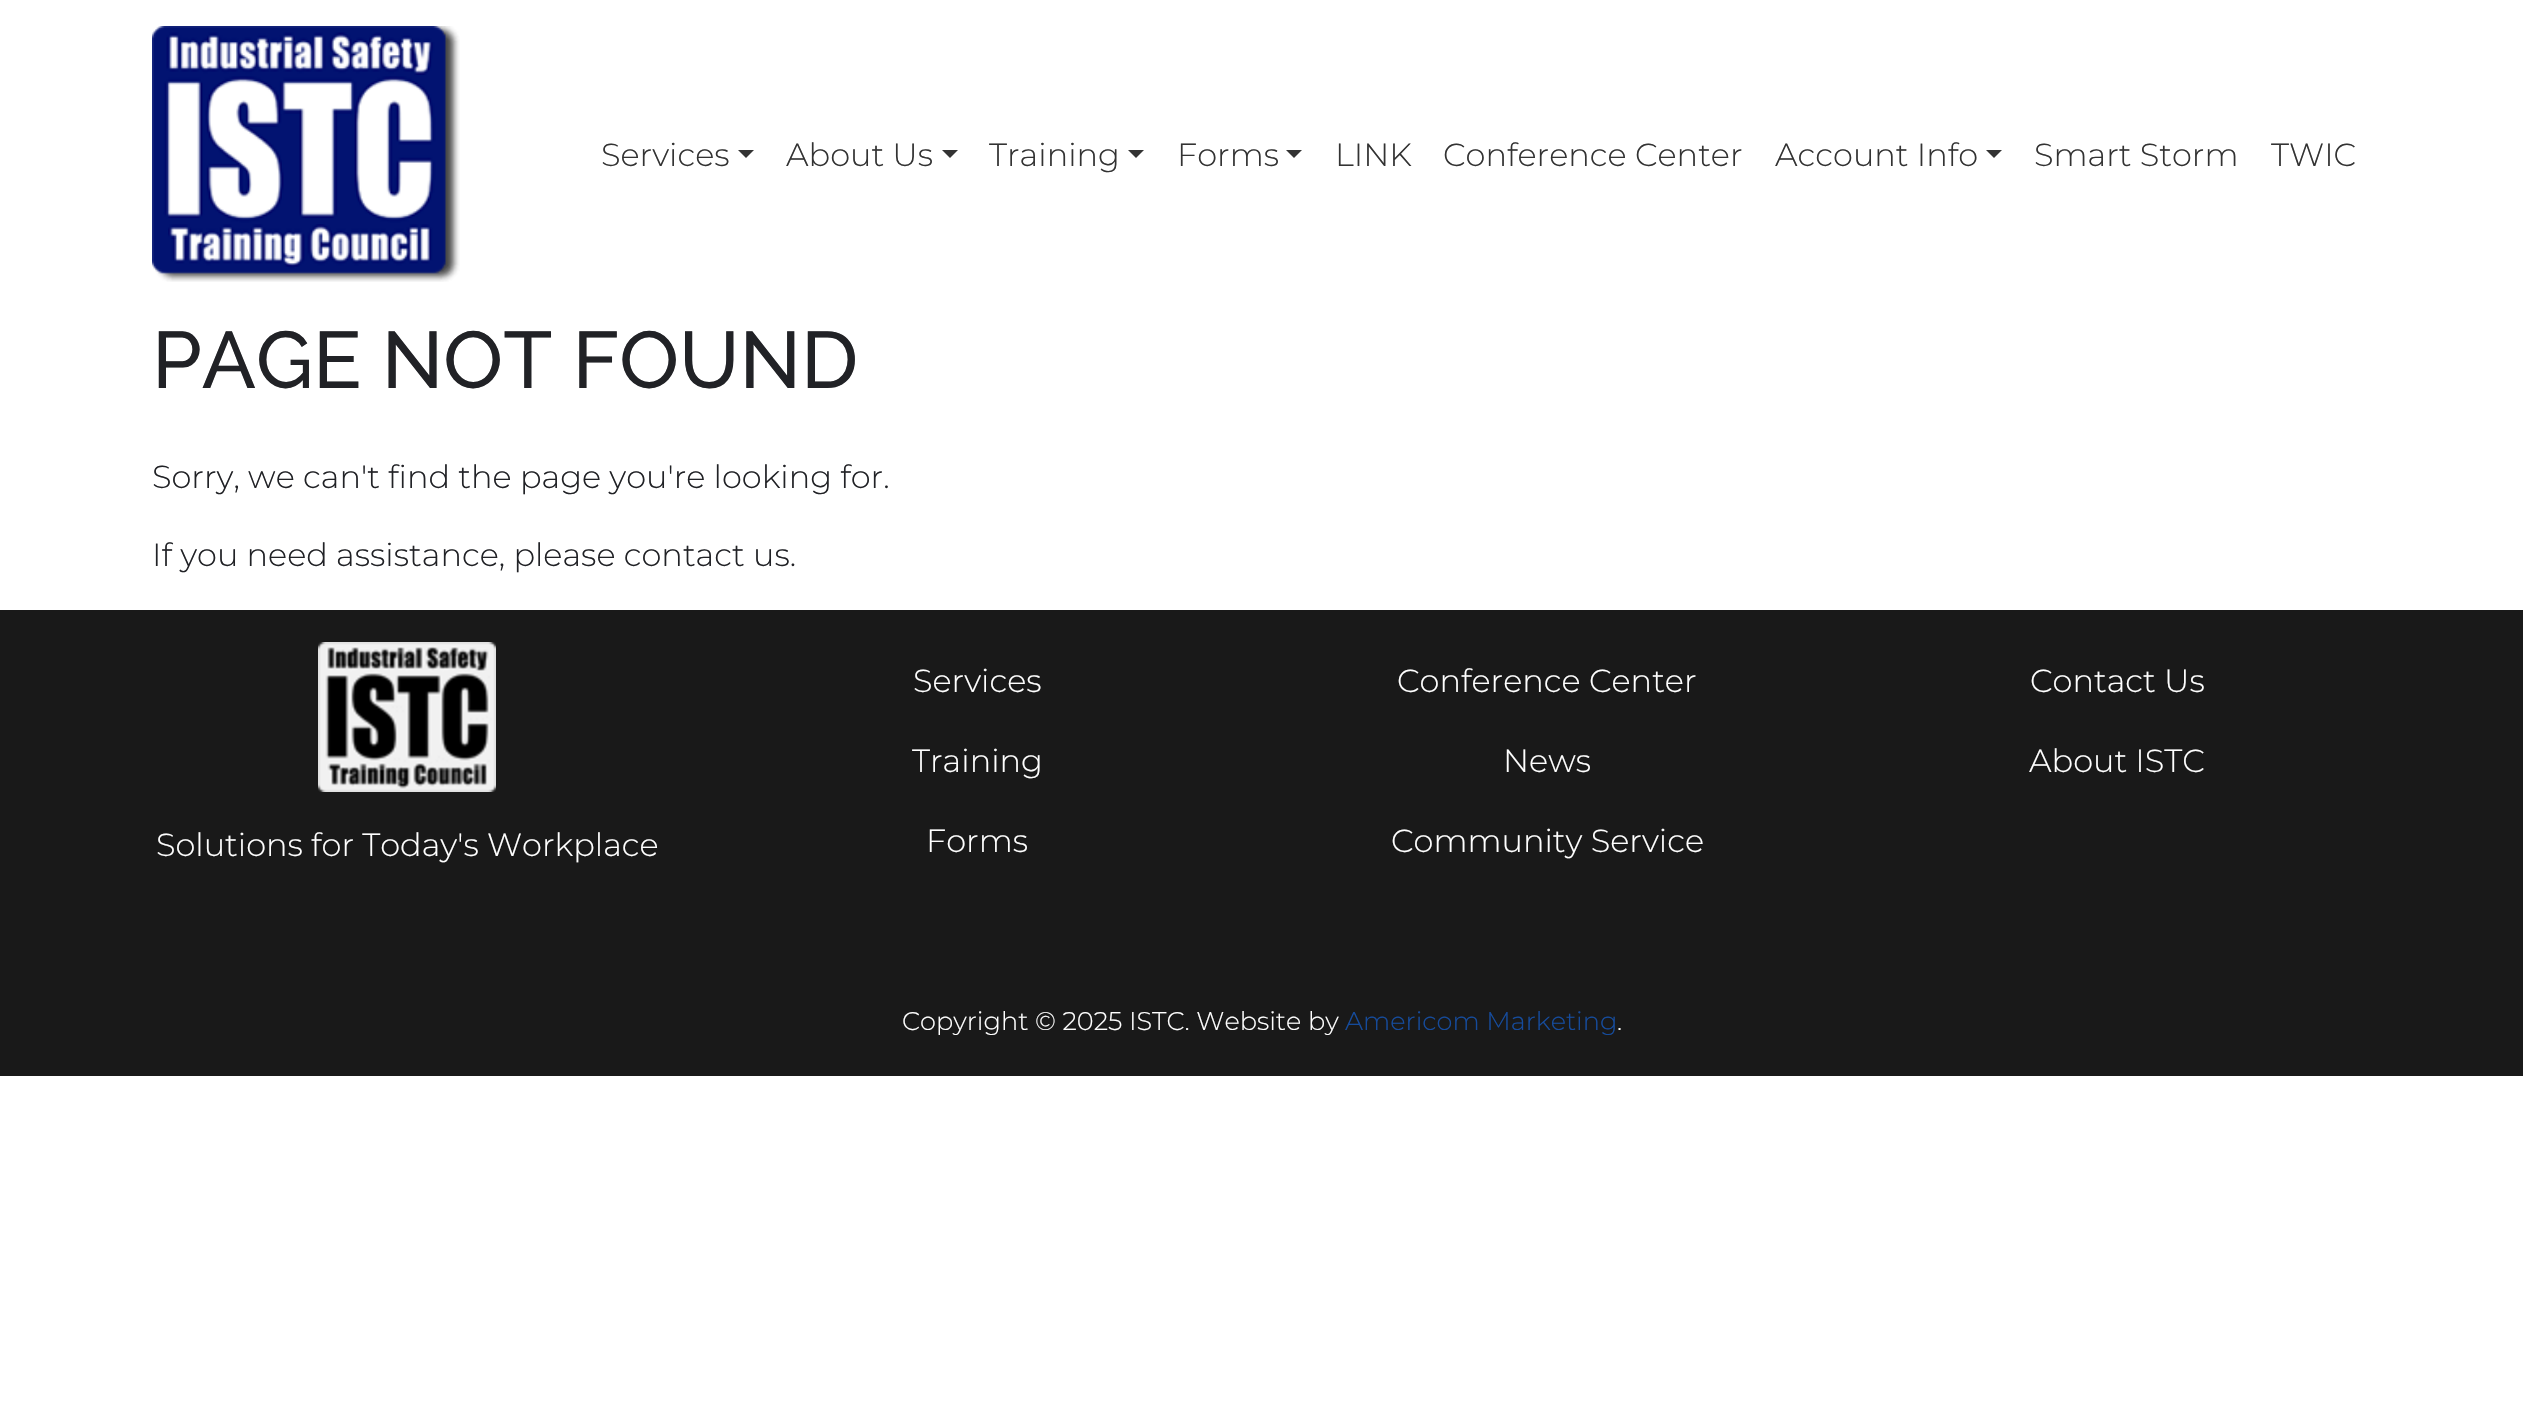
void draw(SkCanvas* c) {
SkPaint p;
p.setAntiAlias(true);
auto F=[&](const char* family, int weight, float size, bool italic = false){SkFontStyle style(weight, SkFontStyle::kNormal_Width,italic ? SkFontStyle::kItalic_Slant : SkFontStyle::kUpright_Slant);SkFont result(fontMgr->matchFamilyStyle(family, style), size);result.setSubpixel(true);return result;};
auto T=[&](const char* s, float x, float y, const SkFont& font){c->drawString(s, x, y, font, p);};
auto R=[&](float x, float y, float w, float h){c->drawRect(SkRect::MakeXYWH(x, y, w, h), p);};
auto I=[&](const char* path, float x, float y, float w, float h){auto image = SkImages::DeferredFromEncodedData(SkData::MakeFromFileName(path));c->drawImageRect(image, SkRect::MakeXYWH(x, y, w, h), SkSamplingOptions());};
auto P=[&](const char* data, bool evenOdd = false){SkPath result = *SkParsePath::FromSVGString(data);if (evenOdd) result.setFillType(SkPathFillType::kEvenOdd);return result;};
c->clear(0xffffffff);
I("1.png",152,26,308,256);
auto f1 = F("Montserrat",100,32);
p.setColor(0xff333333);
T("Services",601,166,f1);
c->drawPath(P("M738 150h16l-8 8z"),p);
T("About Us",786,166,f1);
c->drawPath(P("M942 150h16l-8 8z"),p);
T("Training",989,166,f1);
c->drawPath(P("M1128 150h16l-8 8z"),p);
T("Forms",1177,166,f1);
c->drawPath(P("M1286 150h16l-8 8z"),p);
T("LINK",1335,166,f1);
T("Conference Center",1443,166,f1);
T("Account Info",1775,166,f1);
c->drawPath(P("M1986 150h16l-8 8z"),p);
T("Smart Storm",2034,166,f1);
T("TWIC",2271,166,f1);
auto f2 = F("Raleway",500,80);
p.setColor(0xff212226);
T("PAGE NOT FOUND",152,388,f2);
T("Sorry, we can't find the page you're looking for.",152,488,f1);
T("If you need assistance, please contact us.",152,566,f1);
p.setColor(0xff191919);
R(0,610,2523,466);
p.setColor(0xffffffff);
T("Services",913,692,f1);
T("Training",912,772,f1);
T("Forms",926,852,f1);
T("Conference Center",1397,692,f1);
T("News",1503,772,f1);
T("Community Service",1391,852,f1);
T("Contact Us",2030,692,f1);
T("About ISTC",2029,772,f1);
I("2.png",318,642,178,150);
T("Solutions for Today's Workplace",156,856,f1);
auto f3 = F("Montserrat",100,25.6);
T("Copyright © 2025 ISTC. Website by",902,1030,f3);
p.setColor(0xff154b9c);
T("Americom Marketing",1345,1030,f3);
p.setColor(0xffffffff);
T(".",1617,1030,f3);
}
